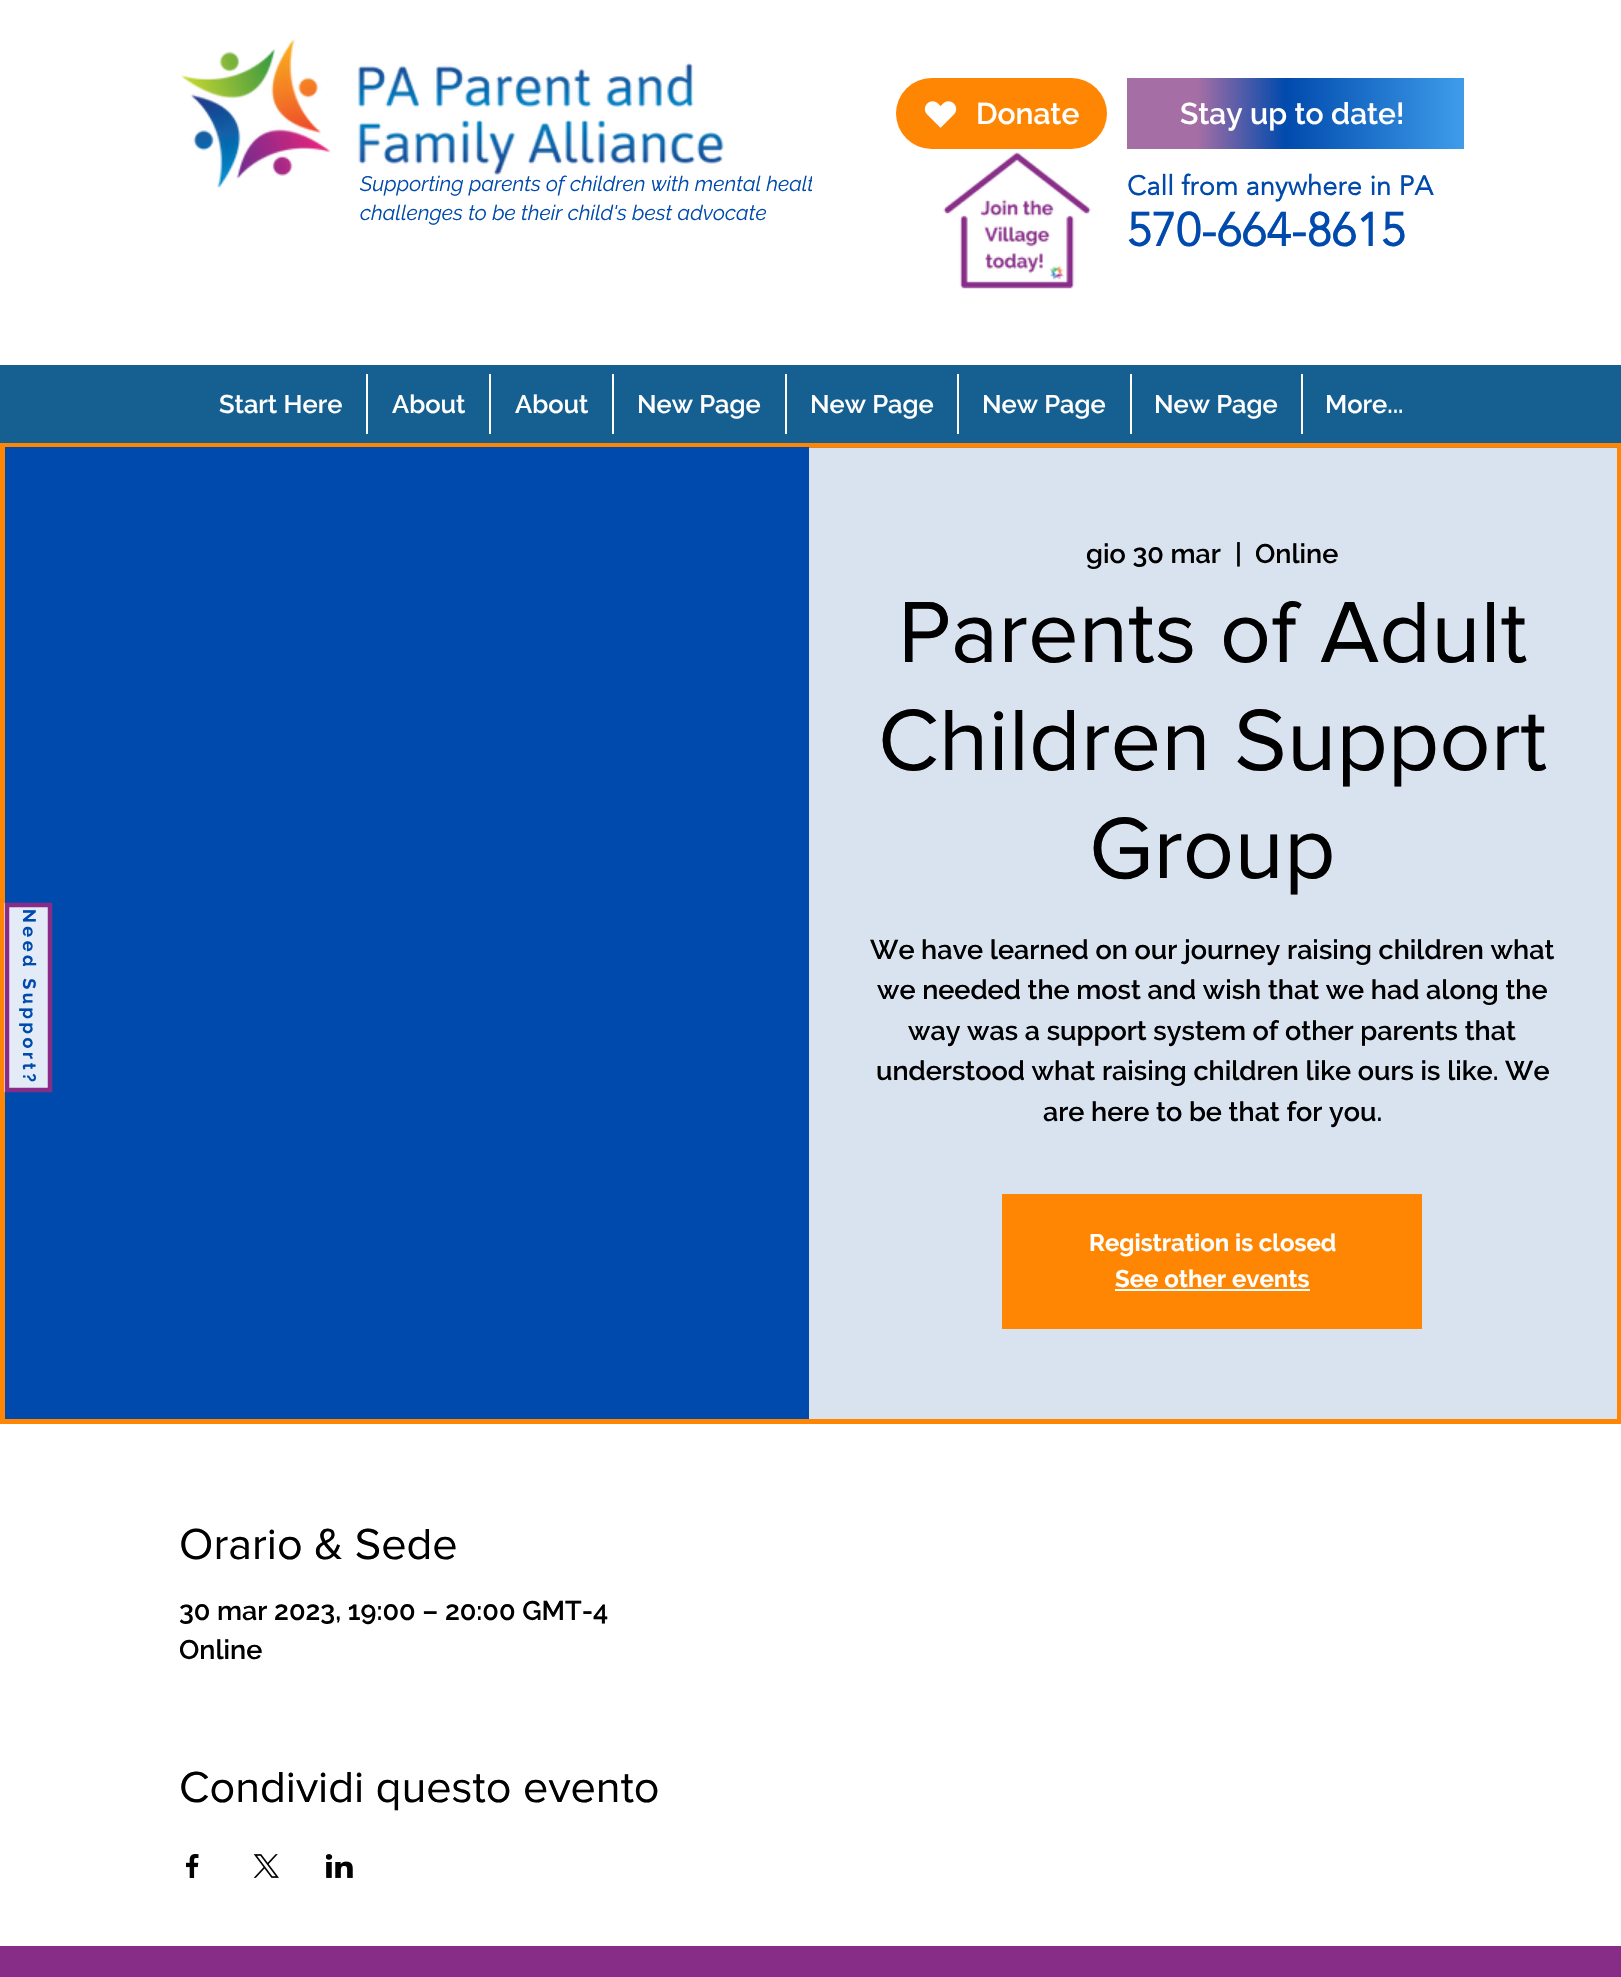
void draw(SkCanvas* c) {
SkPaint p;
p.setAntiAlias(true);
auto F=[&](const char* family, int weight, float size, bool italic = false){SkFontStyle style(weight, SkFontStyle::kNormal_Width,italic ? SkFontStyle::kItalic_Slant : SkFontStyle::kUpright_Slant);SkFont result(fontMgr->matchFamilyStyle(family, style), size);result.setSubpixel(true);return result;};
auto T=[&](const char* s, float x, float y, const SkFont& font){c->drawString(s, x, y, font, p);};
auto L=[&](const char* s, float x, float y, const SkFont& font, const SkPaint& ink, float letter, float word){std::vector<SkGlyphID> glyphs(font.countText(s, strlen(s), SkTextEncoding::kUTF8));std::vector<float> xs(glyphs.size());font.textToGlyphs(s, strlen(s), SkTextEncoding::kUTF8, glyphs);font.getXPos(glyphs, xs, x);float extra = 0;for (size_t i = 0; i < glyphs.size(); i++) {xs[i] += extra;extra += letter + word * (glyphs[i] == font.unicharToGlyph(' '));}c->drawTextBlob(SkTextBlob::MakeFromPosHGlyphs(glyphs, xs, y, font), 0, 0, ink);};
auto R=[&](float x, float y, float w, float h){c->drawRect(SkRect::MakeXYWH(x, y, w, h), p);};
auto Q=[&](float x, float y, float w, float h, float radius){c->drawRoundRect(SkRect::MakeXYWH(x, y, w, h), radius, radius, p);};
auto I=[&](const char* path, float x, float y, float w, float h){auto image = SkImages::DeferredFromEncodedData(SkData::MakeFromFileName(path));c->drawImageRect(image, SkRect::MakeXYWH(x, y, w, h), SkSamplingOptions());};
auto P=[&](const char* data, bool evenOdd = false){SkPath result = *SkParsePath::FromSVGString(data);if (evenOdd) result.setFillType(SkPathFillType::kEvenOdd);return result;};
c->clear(0xffffffff);
I("1.png",181,39,543,149);
auto f1 = F("Raleway",400,21,true);
p.setColor(0xff004aad);
T("Supporting parents of children with mental healt",360,191,f1);
T("challenges to be their child's best advocate",360,220,f1);
p.setColor(0xffffffff);
R(812,176,3,15);
p.setColor(0xffff8603);
Q(896,78,211,71,35.5);
I("2.png",924,101,33,27);
auto f2 = F("Raleway",600,30);
p.setColor(0xffffffff);
T("Donate",976,124,f2);
{
const SkColor colors[] = {0xffa56ea5,0xff004aad,0xff3d9be9};
const float stops[] = {.21,.47,.99};
const SkPoint ends[] = {{1127,113}, {1464,113}};
p.setShader(SkGradientShader::MakeLinear(ends, colors, stops, 3, SkTileMode::kClamp));
p.setAlpha(255);
}
R(1127,78,337,71);
p.setShader(nullptr);
p.setColor(0xffffffff);
T("Stay up to date!",1180,124,f2);
I("3.png",943,152,148,137);
auto f3 = F("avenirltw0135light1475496",700,27);
p.setColor(0xff004aad);
L("Call from anywhere in PA",1127,195,f3,p,.25,0);
auto f4 = F("avenirltw0135light1475496",700,46.5);
L("570-664-8615",1127,246,f4,p,.5,0);
p.setColor(0xff166091);
R(0,365,1621,78);
auto f5 = F("Raleway",600,25.5);
p.setColor(0xffffffff);
T("Start Here",219,413,f5);
R(366,374,2,60);
T("About",392,413,f5);
R(489,374,2,60);
T("About",515,413,f5);
R(612,374,2,60);
T("New Page",637,413,f5);
R(785,374,2,60);
T("New Page",810,413,f5);
R(957,374,2,60);
T("New Page",982,413,f5);
R(1130,374,2,60);
T("New Page",1154,413,f5);
R(1301,374,2,60);
T("More...",1325,413,f5);
p.setStroke(true);
p.setStrokeWidth(5);
p.setColor(0xffff8603);
c->drawRect(SkRect::MakeXYWH(2.5,445.5,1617,976),p);
p.setStroke(false);
p.setColor(0xff004aad);
R(5,447,804,972);
p.setColor(0xe3ffffff);
R(4,903,44,189);
p.setStroke(true);
p.setStrokeWidth(4.5);
p.setColor(0xff872d87);
c->drawPath(P("M50 905v185h-43v-185z"),p);
auto f6 = F("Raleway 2",700,18);
p.setStroke(false);
p.setColor(0xff004aad);
c->save();
c->rotate(90,23,909);
L("Need Support?",23,909,f6,p,3.6,0);
c->restore();
p.setColor(0x3d618ac2);
R(809,447,808,972);
auto f7 = F("Raleway",600,27);
p.setColor(0xff000000);
T("gio 30 mar",1086,563,f7);
T("|",1235,563,f7);
T("Online",1255,563,f7);
auto f8 = F("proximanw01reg",400,90);
T("Parents of Adult",898,662,f8);
T("Children Support",878,770,f8);
T("Group",1089,878,f8);
T("We have learned on our journey raising children what",870,959,f7);
T("we needed the most and wish that we had along the",877,999,f7);
T("way was a support system of other parents that",908,1040,f7);
T("understood what raising children like ours is like. We",876,1080,f7);
T("are here to be that for you.",1043,1121,f7);
p.setColor(0xffff8603);
R(1002,1194,420,135);
auto f9 = F("Raleway",700,24);
p.setColor(0xffffffff);
T("Registration is closed",1089,1251,f9);
T("See other events",1115,1287,f9);
R(1115,1289,195,2);
auto f10 = F("proximanw01reg",400,45);
p.setColor(0xff000000);
T("Orario & Sede",179,1559,f10);
T("30 mar 2023, 19:00 – 20:00 GMT-4",179,1620,f7);
T("Online",179,1659,f7);
T("Condividi questo evento",179,1802,f10);
I("4.png",186,1854,13,24);
I("5.png",253,1854,26,24);
I("6.png",326,1854,27,24);
p.setColor(0xff872d87);
R(0,1946,1621,31);
}
